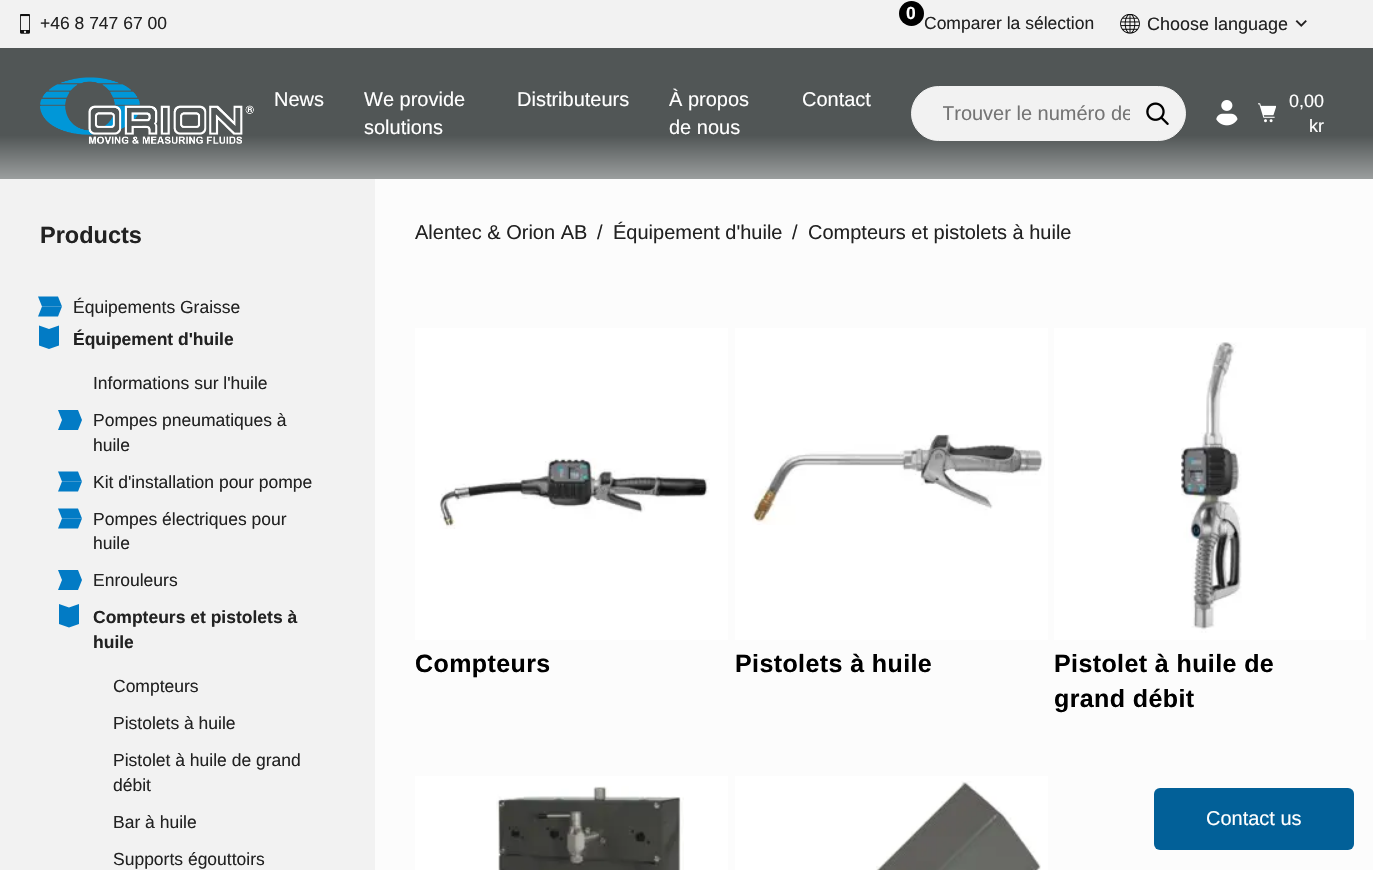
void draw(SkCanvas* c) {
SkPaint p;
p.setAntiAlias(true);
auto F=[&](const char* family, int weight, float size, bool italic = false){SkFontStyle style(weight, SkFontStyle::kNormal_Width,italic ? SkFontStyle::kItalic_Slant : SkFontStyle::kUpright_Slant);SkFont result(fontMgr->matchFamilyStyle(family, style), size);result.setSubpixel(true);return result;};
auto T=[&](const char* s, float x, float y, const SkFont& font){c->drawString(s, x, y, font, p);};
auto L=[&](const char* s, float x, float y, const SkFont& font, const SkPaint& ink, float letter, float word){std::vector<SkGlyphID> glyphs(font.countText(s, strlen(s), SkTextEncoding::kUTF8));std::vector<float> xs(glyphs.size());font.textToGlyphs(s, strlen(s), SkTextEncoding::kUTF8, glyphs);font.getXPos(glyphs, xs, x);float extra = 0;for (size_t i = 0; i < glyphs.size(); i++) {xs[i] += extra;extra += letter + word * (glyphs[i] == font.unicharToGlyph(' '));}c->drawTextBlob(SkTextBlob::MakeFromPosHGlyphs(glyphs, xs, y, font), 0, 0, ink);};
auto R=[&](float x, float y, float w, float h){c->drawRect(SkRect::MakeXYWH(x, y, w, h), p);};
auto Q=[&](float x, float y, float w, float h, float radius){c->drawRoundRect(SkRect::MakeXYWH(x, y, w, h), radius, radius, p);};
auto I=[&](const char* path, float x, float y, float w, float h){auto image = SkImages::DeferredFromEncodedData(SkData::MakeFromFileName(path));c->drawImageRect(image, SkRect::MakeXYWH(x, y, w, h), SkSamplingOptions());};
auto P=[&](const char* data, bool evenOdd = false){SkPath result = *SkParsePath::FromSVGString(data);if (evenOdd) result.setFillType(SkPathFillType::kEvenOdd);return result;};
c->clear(0xfffcfcfc);
p.setColor(0xfff2f2f2);
R(0,0,1373,48);
I("1.png",20,14,10,20);
auto f1 = F("Liberation Sans",400,17.5);
p.setColor(0xff222222);
T("+46 8 747 67 00",40,29,f1);
p.setColor(0xff000000);
c->drawCircle(911.5,13.5,12.5,p);
auto f2 = F("Liberation Sans",700,17.5);
p.setColor(0xffffffff);
T("0",906,19,f2);
p.setColor(0xff222222);
T("Comparer la sélection",924,29,f1);
I("2.png",1120,14,20,20);
auto f3 = F("Liberation Sans",400,18);
T("Choose language",1147,30,f3);
I("3.png",1295,20,12,7);
{
const SkColor colors[] = {0xff515656,0xff9b9e9e};
const float stops[] = {.67,1};
const SkPoint ends[] = {{687,47}, {687,179}};
p.setShader(SkGradientShader::MakeLinear(ends, colors, stops, 2, SkTileMode::kClamp));
p.setAlpha(255);
}
R(0,48,1373,131);
I("4.png",40,77,214,67);
auto f4 = F("Liberation Sans",400,20);
p.setShader(nullptr);
p.setColor(0xffffffff);
T("News",274,106,f4);
T("We provide",364,106,f4);
T("solutions",364,134,f4);
T("Distributeurs",517,106,f4);
T("À propos",669,106,f4);
T("de nous",669,134,f4);
T("Contact",802,106,f4);
p.setColor(0xfff2f2f2);
c->drawRoundRect(SkRect::MakeXYWH(911.5,86.5,274,54),27,27,p);
p.setStroke(true);
p.setStrokeWidth(1);
c->drawRoundRect(SkRect::MakeXYWH(911.5,86.5,274,54),27,27,p);
c->save();
c->clipRect(SkRect::MakeXYWH(943,103,187,22));
p.setStroke(false);
p.setColor(0xff757575);
T("Trouver le numéro de",942,120,f4);
c->restore();
I("5.png",1146,102,23,23);
I("6.png",1216,100,22,26);
I("7.png",1258,103,18,20);
p.setColor(0xffffffff);
T("0,00",1289,107,f3);
T("kr",1309,132,f3);
p.setColor(0xfff2f2f2);
R(0,179,375,691);
auto f5 = F("Liberation Sans",700,23.5);
p.setColor(0xff222222);
T("Products",40,243,f5);
p.setColor(0xff027bc5);
c->drawPath(P("M42 306.5h20l-4 10h-20z"),p);
c->drawPath(P("M38 296.5h20l4 10h-20z"),p);
p.setColor(0xff222222);
T("Équipements Graisse",73,313,f1);
p.setColor(0xff027bc5);
c->drawPath(P("M49 329v20l-10-3.5v-20zm10-3.5v20l-10 3.5v-20z"),p);
p.setColor(0xff222222);
T("Équipement d'huile",73,345,f2);
T("Informations sur l'huile",93,389,f1);
p.setColor(0xff027bc5);
c->drawPath(P("M62 420h20l-4 10h-20zm-4-10h20l4 10h-20z"),p);
p.setColor(0xff222222);
T("Pompes pneumatiques à",93,426,f1);
T("huile",93,451,f1);
p.setColor(0xff027bc5);
c->drawPath(P("M62 481.5h20l-4 10h-20z"),p);
c->drawPath(P("M58 471.5h20l4 10h-20z"),p);
p.setColor(0xff222222);
T("Kit d'installation pour pompe",93,488,f1);
p.setColor(0xff027bc5);
c->drawPath(P("M62 518.5h20l-4 10h-20z"),p);
c->drawPath(P("M58 508.5h20l4 10h-20z"),p);
p.setColor(0xff222222);
T("Pompes électriques pour",93,525,f1);
T("huile",93,549,f1);
p.setColor(0xff027bc5);
c->drawPath(P("M62 580h20l-4 10h-20zm-4-10h20l4 10h-20z"),p);
p.setColor(0xff222222);
T("Enrouleurs",93,586,f1);
p.setColor(0xff027bc5);
c->drawPath(P("M69 607.5v20l-10-3.5v-20zm10-3.5v20l-10 3.5v-20z"),p);
p.setColor(0xff222222);
T("Compteurs et pistolets à",93,623,f2);
T("huile",93,648,f2);
T("Compteurs",113,692,f1);
T("Pistolets à huile",113,729,f1);
T("Pistolet à huile de grand",113,766,f1);
T("débit",113,791,f1);
T("Bar à huile",113,828,f1);
T("Supports égouttoirs",113,865,f1);
T("Alentec & Orion AB",415,239,f4);
T("/",597,239,f4);
T("Équipement d'huile",613,239,f4);
T("/",792,239,f4);
T("Compteurs et pistolets à huile",808,239,f4);
p.setColor(0xffffffff);
R(415,328,313,312);
I("8.png",439,458,271,71);
auto f6 = F("Liberation Sans",700,25);
p.setColor(0xff000000);
L("Compteurs",415,672,f6,p,.4,0);
p.setColor(0xffffffff);
R(735,328,313,312);
I("9.png",752,434,293,91);
p.setColor(0xff000000);
L("Pistolets à huile",735,672,f6,p,.4,0);
p.setColor(0xffffffff);
R(1054,328,312,312);
I("10.png",1181,342,61,291);
p.setColor(0xff000000);
L("Pistolet à huile de",1054,672,f6,p,.4,0);
L("grand débit",1054,707,f6,p,.4,0);
p.setColor(0xffffffff);
R(415,776,313,94);
I("11.png",496,786,188,84);
R(735,776,313,94);
I("12.png",876,781,165,89);
p.setColor(0xff026098);
Q(1154,788,200,62,6);
p.setColor(0xffffffff);
T("Contact us",1206,825,f4);
}
